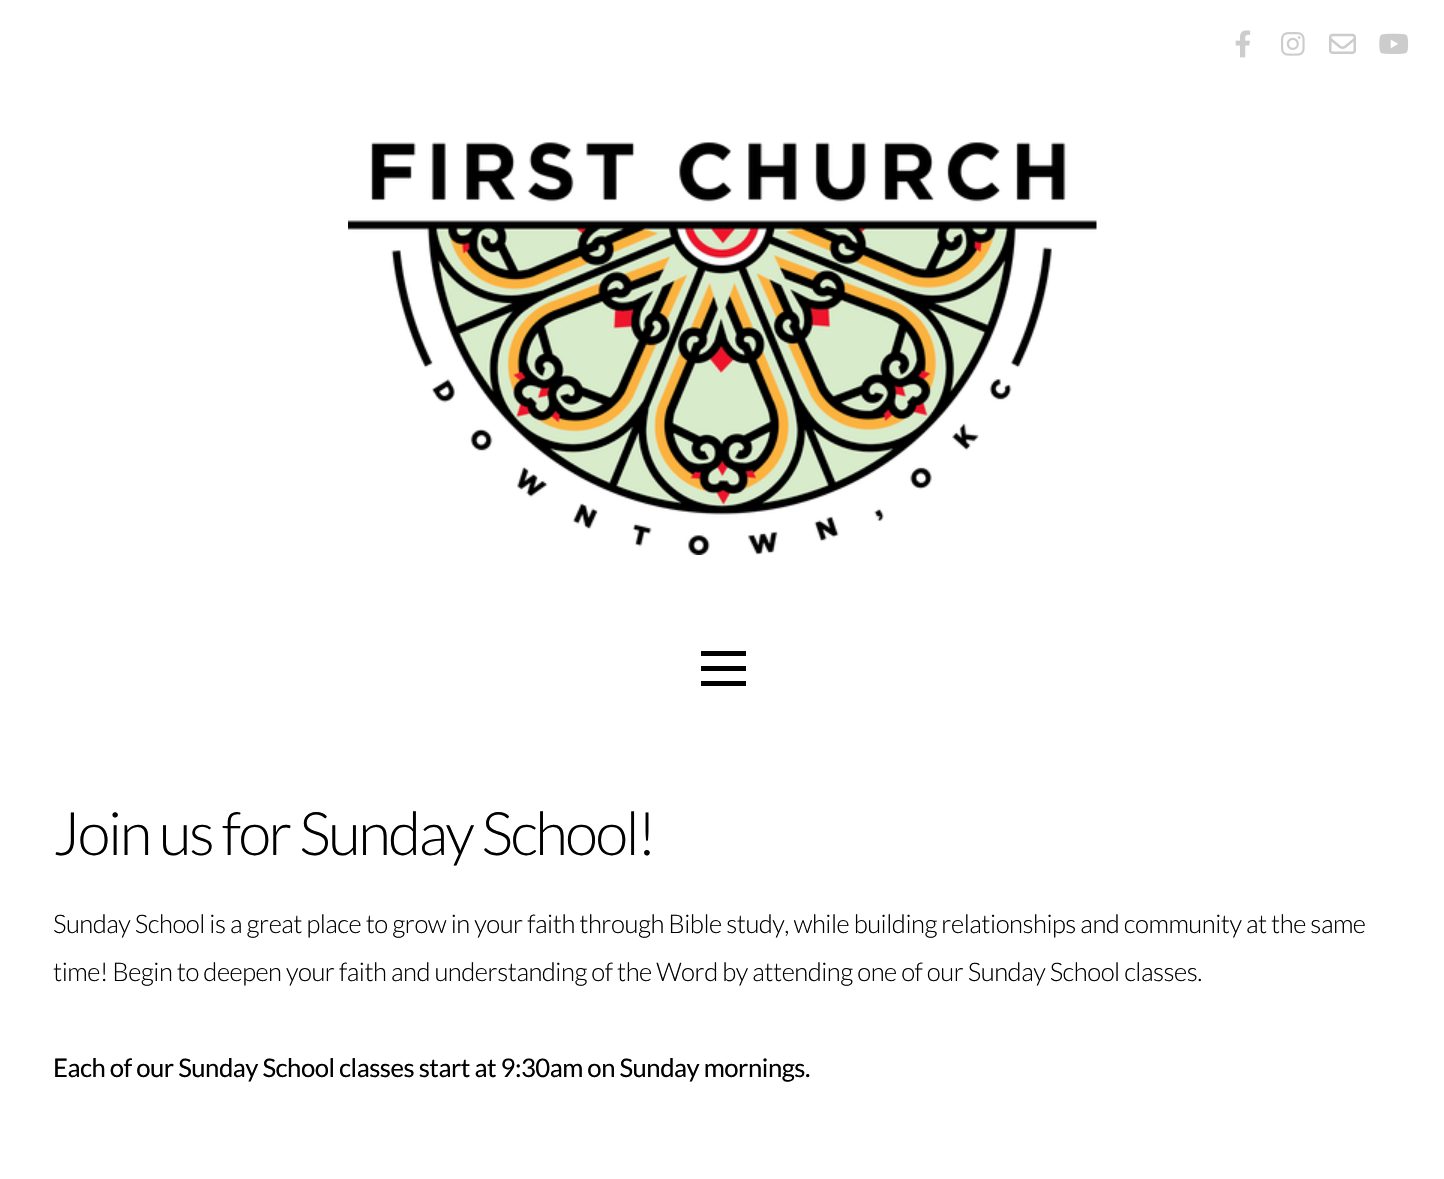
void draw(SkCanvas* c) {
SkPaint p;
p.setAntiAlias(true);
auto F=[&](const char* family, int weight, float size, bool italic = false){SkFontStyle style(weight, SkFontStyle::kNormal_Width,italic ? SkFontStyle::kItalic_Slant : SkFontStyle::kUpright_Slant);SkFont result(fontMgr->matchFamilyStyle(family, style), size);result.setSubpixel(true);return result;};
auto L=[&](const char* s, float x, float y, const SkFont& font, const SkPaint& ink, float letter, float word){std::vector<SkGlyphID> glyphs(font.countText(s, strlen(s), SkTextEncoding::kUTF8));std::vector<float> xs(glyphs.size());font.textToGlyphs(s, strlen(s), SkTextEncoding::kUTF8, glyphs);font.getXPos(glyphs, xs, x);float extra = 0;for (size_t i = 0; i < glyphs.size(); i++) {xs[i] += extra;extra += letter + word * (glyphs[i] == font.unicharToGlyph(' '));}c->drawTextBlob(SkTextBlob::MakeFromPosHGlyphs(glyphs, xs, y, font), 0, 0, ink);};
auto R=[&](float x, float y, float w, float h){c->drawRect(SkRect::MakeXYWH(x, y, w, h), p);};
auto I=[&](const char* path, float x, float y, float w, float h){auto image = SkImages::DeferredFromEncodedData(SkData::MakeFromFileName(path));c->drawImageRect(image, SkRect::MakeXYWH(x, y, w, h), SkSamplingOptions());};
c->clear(0xffffffff);
I("1.png",1235,30,16,28);
I("2.png",1281,32,24,24);
I("3.png",1329,33,27,21);
I("4.png",1379,33,30,21);
I("5.png",348,142,749,413);
p.setColor(0xff000000);
R(701,651,45,5);
R(701,666,45,5);
R(701,681,45,5);
auto f1 = F("Lato",300,60);
L("Join us for Sunday School!",53,855,f1,p,-2.4,0);
auto f2 = F("Lato",300,25.68);
L("Sunday School is a great place to grow in your faith through Bible study, while building relationships and community at the same",53,933,f2,p,-.48,0);
L("time! Begin to deepen your faith and understanding of the Word by attending one of our Sunday School classes.",53,981,f2,p,-.48,0);
auto f3 = F("Lato",400,25.68);
L("Each of our Sunday School classes start at 9:30am on Sunday mornings.",53,1077,f3,p,-.48,0);
}
